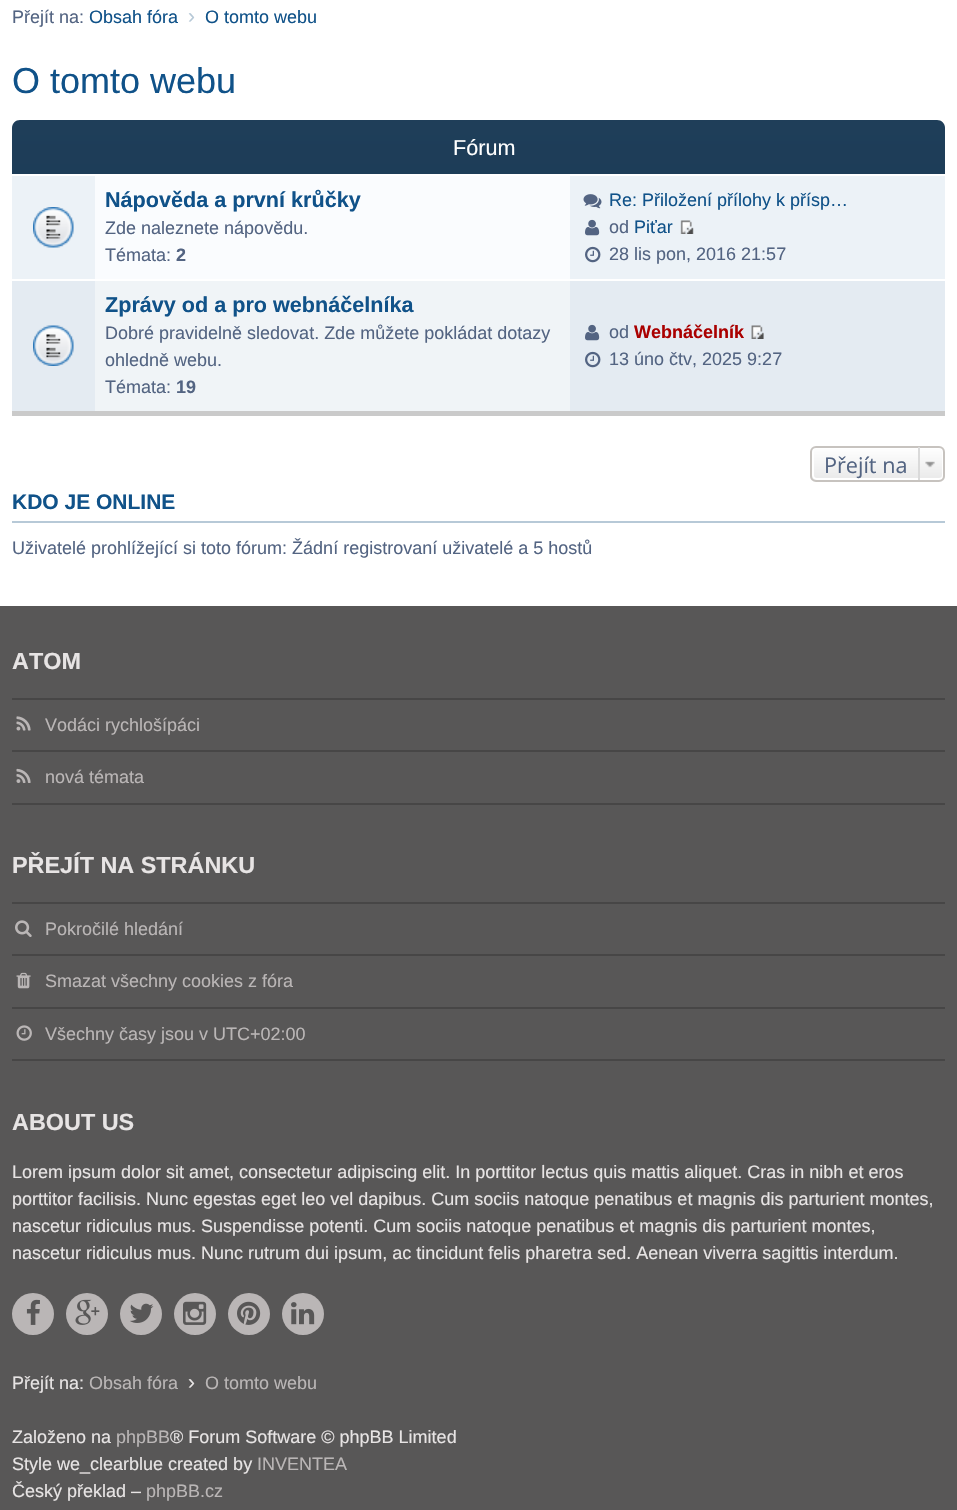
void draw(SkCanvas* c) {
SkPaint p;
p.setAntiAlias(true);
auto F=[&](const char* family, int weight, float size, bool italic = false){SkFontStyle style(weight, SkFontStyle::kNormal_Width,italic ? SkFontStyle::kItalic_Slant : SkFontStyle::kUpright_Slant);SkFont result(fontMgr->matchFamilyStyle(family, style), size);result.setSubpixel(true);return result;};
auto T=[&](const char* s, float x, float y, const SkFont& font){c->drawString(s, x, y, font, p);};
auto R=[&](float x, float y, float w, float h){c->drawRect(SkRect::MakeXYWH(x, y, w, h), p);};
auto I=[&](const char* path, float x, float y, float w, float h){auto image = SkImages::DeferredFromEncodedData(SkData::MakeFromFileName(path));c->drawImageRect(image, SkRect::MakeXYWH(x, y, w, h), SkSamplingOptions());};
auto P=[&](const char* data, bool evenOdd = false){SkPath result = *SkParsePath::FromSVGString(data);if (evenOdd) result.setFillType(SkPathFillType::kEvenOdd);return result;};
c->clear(0xffffffff);
auto f1 = F("Liberation Sans",400,18);
p.setColor(0xff536482);
T("Přejít na:",12,23,f1);
p.setColor(0xff105289);
T("Obsah fóra",89,23,f1);
auto f2 = F("Liberation Sans",400,21);
p.setColor(0xffb7c9d7);
T("›",188,23,f2);
p.setColor(0xff105289);
T("O tomto webu",205,23,f1);
auto f3 = F("Liberation Sans",400,36);
T("O tomto webu",12,93,f3);
{
const SkColor colors[] = {0xff1f3e59,0xff153753};
const float stops[] = {0,1};
const SkPoint ends[] = {{479,120}, {479,411}};
p.setShader(SkGradientShader::MakeLinear(ends, colors, stops, 2, SkTileMode::kClamp));
p.setAlpha(255);
}
c->drawPath(P("M20 120h917c4.5 0 8 3.5 8 8v283h-933v-283c0-4.5 3.5-8 8-8z"),p);
p.setShader(nullptr);
p.setColor(0xffcacaca);
R(12,411,933,5);
auto f4 = F("Liberation Sans",400,21.6);
p.setColor(0xffffffff);
T("Fórum",453,155,f4);
p.setColor(0xfffafcfe);
R(95,176,475,103);
p.setColor(0xffffffff);
R(12,174,933,2);
p.setColor(0xffecf2f7);
R(12,176,83,103);
I("1.png",33,207,41,41);
auto f5 = F("Liberation Sans",700,21.6);
p.setColor(0xff105289);
T("Nápověda a první krůčky",105,207,f5);
p.setColor(0xff536482);
T("Zde naleznete nápovědu.",105,234,f1);
T("Témata:",105,261,f1);
auto f6 = F("Liberation Sans",700,18);
T("2",176,261,f6);
p.setColor(0xffecf2f7);
R(570,176,375,103);
I("2.png",583,194,19,15);
p.setColor(0xff105289);
T("Re: Přiložení přílohy k přísp…",609,206,f1);
I("3.png",585,219,15,17);
p.setColor(0xff536482);
T("od",609,233,f1);
p.setColor(0xff105289);
T("Piťar",634,233,f1);
I("4.png",680,220,14,14);
I("5.png",585,246,16,17);
p.setColor(0xff536482);
T("28 lis pon, 2016 21:57",609,260,f1);
p.setColor(0xfff0f4f7);
R(95,281,475,130);
p.setColor(0xffffffff);
R(12,279,933,2);
p.setColor(0xffe4ebf2);
R(12,281,83,130);
I("6.png",33,325,41,41);
p.setColor(0xff105289);
T("Zprávy od a pro webnáčelníka",105,312,f5);
p.setColor(0xff536482);
T("Dobré pravidelně sledovat. Zde můžete pokládat dotazy",105,339,f1);
T("ohledně webu.",105,366,f1);
T("Témata:",105,393,f1);
T("19",176,393,f6);
p.setColor(0xffe4ebf2);
R(570,281,375,130);
I("7.png",585,324,15,17);
p.setColor(0xff536482);
T("od",609,338,f1);
p.setColor(0xffaa0000);
T("Webnáčelník",634,338,f6);
I("8.png",751,325,13,14);
I("9.png",585,351,16,17);
p.setColor(0xff536482);
T("13 úno čtv, 2025 9:27",609,365,f1);
c->save();
c->clipPath(P("M816 446h123c3.5 0 6 2.5 6 6v24c0 3.5-2.5 6-6 6h-123c-3.5 0-6-2.5-6-6v-24c0-3.5 2.5-6 6-6z"),true);
{
const SkColor colors[] = {0xffffffff,0xffe9e9e9};
const float stops[] = {0,1};
const SkPoint ends[] = {{878,447}, {878,480}};
p.setShader(SkGradientShader::MakeLinear(ends, colors, stops, 2, SkTileMode::kClamp));
p.setAlpha(255);
}
R(810,447,135,33);
c->restore();
p.setStroke(true);
p.setStrokeWidth(2);
p.setShader(nullptr);
p.setColor(0xffffffff);
c->drawRoundRect(SkRect::MakeXYWH(813,448,130,31),4,4,p);
p.setColor(0xffc7c3bf);
c->drawRoundRect(SkRect::MakeXYWH(811,447,133,34),5,5,p);
auto f7 = F("Open Sans",400,21.6);
p.setStroke(false);
p.setColor(0xff536482);
T("Přejít na",824,473,f7);
I("10.png",925,461,10,7);
p.setColor(0xffdadada);
R(918,447,2,33);
p.setColor(0xffb7c9d7);
R(12,521,933,2);
auto f8 = F("Liberation Sans",700,21);
p.setColor(0xff105289);
T("KDO JE ONLINE",12,509,f8);
p.setColor(0xff536482);
T("Uživatelé prohlížející si toto fórum: Žádní registrovaní uživatelé a 5 hostů",12,554,f1);
p.setColor(0xff585757);
R(0,606,957,904);
auto f9 = F("Liberation Sans",700,23.4);
p.setColor(0xffe7e4e4);
T("ATOM",12,669,f9);
p.setColor(0xff474646);
R(12,698,933,2);
I("11.png",16,716,15,15);
p.setColor(0xffbab6b6);
T("Vodáci rychlošípáci",45,731,f1);
p.setColor(0xff474646);
R(12,750,933,2);
R(12,803,933,2);
I("12.png",16,768,15,15);
p.setColor(0xffbab6b6);
T("nová témata",45,783,f1);
p.setColor(0xffe7e4e4);
T("PŘEJÍT NA STRÁNKU",12,873,f9);
p.setColor(0xff474646);
R(12,902,933,2);
I("13.png",15,920,17,17);
p.setColor(0xffbab6b6);
T("Pokročilé hledání",45,935,f1);
p.setColor(0xff474646);
R(12,954,933,2);
I("14.png",16,972,15,17);
p.setColor(0xffbab6b6);
T("Smazat všechny cookies z fóra",45,987,f1);
p.setColor(0xff474646);
R(12,1007,933,2);
R(12,1059,933,2);
I("15.png",16,1025,16,16);
p.setColor(0xffbab6b6);
T("Všechny časy jsou v UTC+02:00",45,1040,f1);
p.setColor(0xffe7e4e4);
T("ABOUT US",12,1130,f9);
T("Lorem ipsum dolor sit amet, consectetur adipiscing elit. In porttitor lectus quis mattis aliquet. Cras in nibh et eros",12,1178,f1);
T("porttitor facilisis. Nunc egestas eget leo vel dapibus. Cum sociis natoque penatibus et magnis dis parturient montes,",12,1205,f1);
T("nascetur ridiculus mus. Suspendisse potenti. Cum sociis natoque penatibus et magnis dis parturient montes,",12,1232,f1);
T("nascetur ridiculus mus. Nunc rutrum dui ipsum, ac tincidunt felis pharetra sed. Aenean viverra sagittis interdum.",12,1259,f1);
p.setColor(0xffbab6b6);
c->drawCircle(33,1314,21,p);
I("16.png",26,1299,14,26);
c->drawCircle(87,1314,21,p);
I("17.png",75,1299,25,26);
c->drawCircle(141,1314,21,p);
I("18.png",130,1303,24,20);
c->drawCircle(195,1314,21,p);
I("19.png",183,1301,24,24);
c->drawCircle(249,1314,21,p);
I("20.png",237,1301,24,24);
c->drawCircle(303,1314,21,p);
I("21.png",291,1302,24,23);
p.setColor(0xffe7e4e4);
T("Přejít na:",12,1389,f1);
p.setColor(0xffbab6b6);
T("Obsah fóra",89,1389,f1);
p.setColor(0xffe7e4e4);
T("›",188,1389,f2);
p.setColor(0xffbab6b6);
T("O tomto webu",205,1389,f1);
p.setColor(0xffe7e4e4);
T("Založeno na",12,1443,f1);
p.setColor(0xffbab6b6);
T("phpBB",116,1443,f1);
p.setColor(0xffe7e4e4);
T("® Forum Software © phpBB Limited",170,1443,f1);
T("Style we_clearblue created by",12,1470,f1);
p.setColor(0xffbab6b6);
T("INVENTEA",257,1470,f1);
p.setColor(0xffe7e4e4);
T("Český překlad –",12,1497,f1);
p.setColor(0xffbab6b6);
T("phpBB.cz",146,1497,f1);
}
